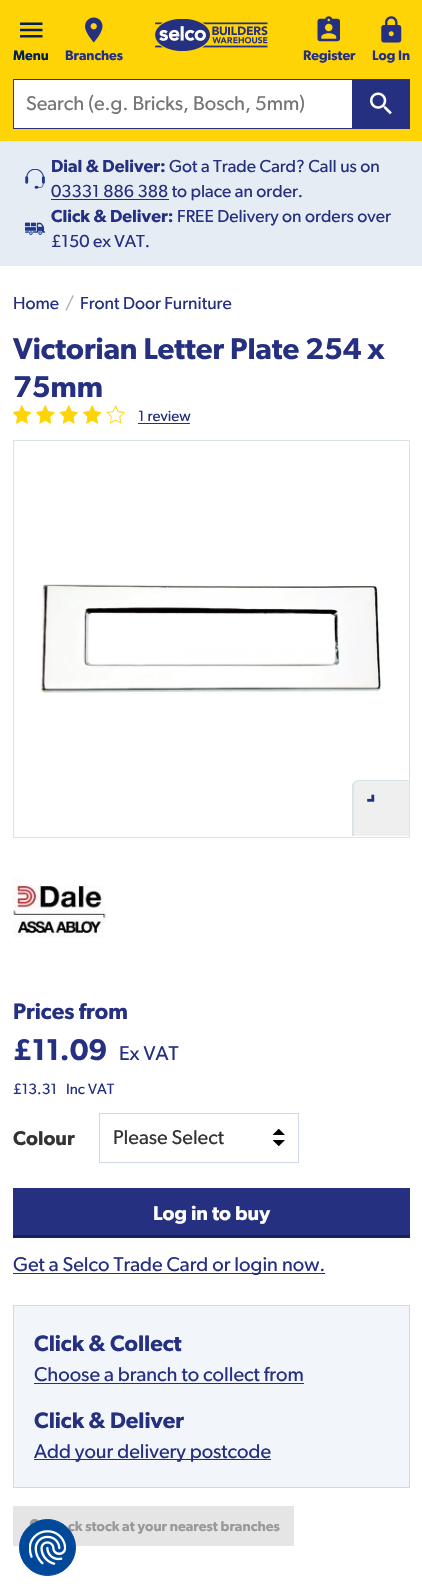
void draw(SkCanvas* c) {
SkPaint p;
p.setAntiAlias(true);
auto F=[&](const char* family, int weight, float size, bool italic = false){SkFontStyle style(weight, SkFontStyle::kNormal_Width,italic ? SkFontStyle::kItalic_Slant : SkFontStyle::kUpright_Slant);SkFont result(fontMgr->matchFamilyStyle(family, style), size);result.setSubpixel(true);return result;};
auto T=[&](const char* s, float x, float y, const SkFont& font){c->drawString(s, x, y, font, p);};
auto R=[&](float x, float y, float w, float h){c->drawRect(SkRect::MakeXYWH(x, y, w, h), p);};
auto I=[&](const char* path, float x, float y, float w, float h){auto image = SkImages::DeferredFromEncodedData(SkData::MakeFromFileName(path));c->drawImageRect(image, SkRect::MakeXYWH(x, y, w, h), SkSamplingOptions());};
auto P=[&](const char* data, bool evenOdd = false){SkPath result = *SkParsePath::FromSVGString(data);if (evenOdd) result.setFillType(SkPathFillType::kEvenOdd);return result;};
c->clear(0xffe5ecf4);
p.setColor(0xffffd407);
R(0,0,422,141);
I("1.png",155,19,113,32);
I("2.png",20,22,23,16);
auto f1 = F("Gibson",600,13.75);
p.setColor(0xff04204b);
T("Menu",13,60,f1);
I("3.png",85,17,18,26);
p.setColor(0xff253081);
T("Branches",65,60,f1);
I("4.png",317,16,23,26);
T("Register",303,60,f1);
I("5.png",381,16,21,27);
T("Log In",372,60,f1);
p.setColor(0xffffffff);
c->drawRect(SkRect::MakeXYWH(13.5,79.5,339,49),p);
p.setStroke(true);
p.setStrokeWidth(1);
p.setColor(0xff253081);
c->drawRect(SkRect::MakeXYWH(13.5,79.5,339,49),p);
auto f2 = F("Gibson",400,20);
p.setStroke(false);
p.setColor(0xff757575);
T("Search (e.g. Bricks, Bosch, 5mm)",26,110,f2);
p.setColor(0xff253081);
R(353,79,57,50);
I("6.png",370,92,22,23);
I("7.png",25,169,20,20);
auto f3 = F("Gibson",600,17.5);
T("Dial & Deliver:",51,172,f3);
auto f4 = F("Gibson",400,17.5);
T("Got a Trade Card? Call us on",169,172,f4);
R(51,199,118,1);
T("03331 886 388 to place an order.",51,197,f4);
I("8.png",25,222,20,13);
T("Click & Deliver:",51,222,f3);
T("FREE Delivery on orders over",177,222,f4);
T("£150 ex VAT.",51,247,f4);
p.setColor(0xffffffff);
R(0,266,422,1329);
p.setColor(0xff253081);
T("Home",13,309,f4);
p.setColor(0xffb3b3b6);
T("/",65,309,f4);
p.setColor(0xff253081);
T("Front Door Furniture",80,309,f4);
auto f5 = F("Gibson",600,30);
T("Victorian Letter Plate 254 x",13,359,f5);
T("75mm",13,397,f5);
I("9.png",13,405,112,19);
I("10.png",13,405,89,19);
auto f6 = F("Gibson",400,15);
T("1 review",138,421,f6);
R(138,423,52,1);
p.setStroke(true);
p.setColor(0xffd8e5e8);
c->drawRect(SkRect::MakeXYWH(13.5,440.5,396,397),p);
I("11.png",39,583,342,112);
p.setStroke(false);
p.setColor(0xffefefef);
c->drawPath(P("M359 780h50v56h-56v-50c0-3.5 2.5-6 6-6z"),p);
p.setColor(0xffd8e5e8);
c->drawPath(P("M359 780h50v56h-57v-50c0-3 3-6 7-6zm0 1h50v55h-55v-50c0-3 2-5 5-5z",true),p);
I("12.png",367,794,8,8);
I("13.png",12,877,94,61);
auto f7 = F("Gibson",600,22.5);
p.setColor(0xff253081);
T("Prices from",13,1019,f7);
T("£11.09",13,1060,f5);
T("Ex VAT",119,1060,f2);
T("£13.31",13,1094,f6);
T("Inc VAT",66,1094,f6);
auto f8 = F("Gibson",600,20);
p.setColor(0xff333333);
T("Colour",13,1145,f8);
I("14.png",273,1129,12,17);
p.setStroke(true);
p.setColor(0xffccdaeb);
c->drawRect(SkRect::MakeXYWH(99.5,1113.5,199,49),p);
p.setStroke(false);
p.setColor(0xff333333);
T("Please Select",113,1144,f2);
p.setColor(0xff253081);
R(13,1188,397,47);
p.setColor(0xff1a2159);
R(13,1235,397,3);
p.setColor(0xffffffff);
T("Log in to buy",153,1220,f8);
p.setColor(0xff253081);
R(13,1273,312,1);
T("Get a Selco Trade Card or login now.",13,1271,f2);
p.setColor(0xfff2f6fa);
c->drawRect(SkRect::MakeXYWH(13.5,1305.5,396,182),p);
p.setStroke(true);
p.setColor(0xffccdaeb);
c->drawRect(SkRect::MakeXYWH(13.5,1305.5,396,182),p);
p.setStroke(false);
p.setColor(0xff253081);
T("Click & Collect",34,1351,f7);
T("Choose a branch to collect from",34,1381,f2);
R(34,1383,270,1);
T("Click & Deliver",34,1428,f7);
R(34,1459,237,1);
T("Add your delivery postcode",34,1458,f2);
p.setColor(0xffe5e5e5);
R(13,1506,281,40);
I("15.png",29,1518,10,7);
auto f9 = F("Gibson",600,14);
p.setColor(0xff999999);
T("ck stock at your nearest branches",68,1531,f9);
p.setColor(0xff004899);
c->drawCircle(47.5,1547.5,28,p);
p.setStroke(true);
c->drawCircle(47.5,1547.5,28,p);
I("16.png",29,1530,37,35);
}
